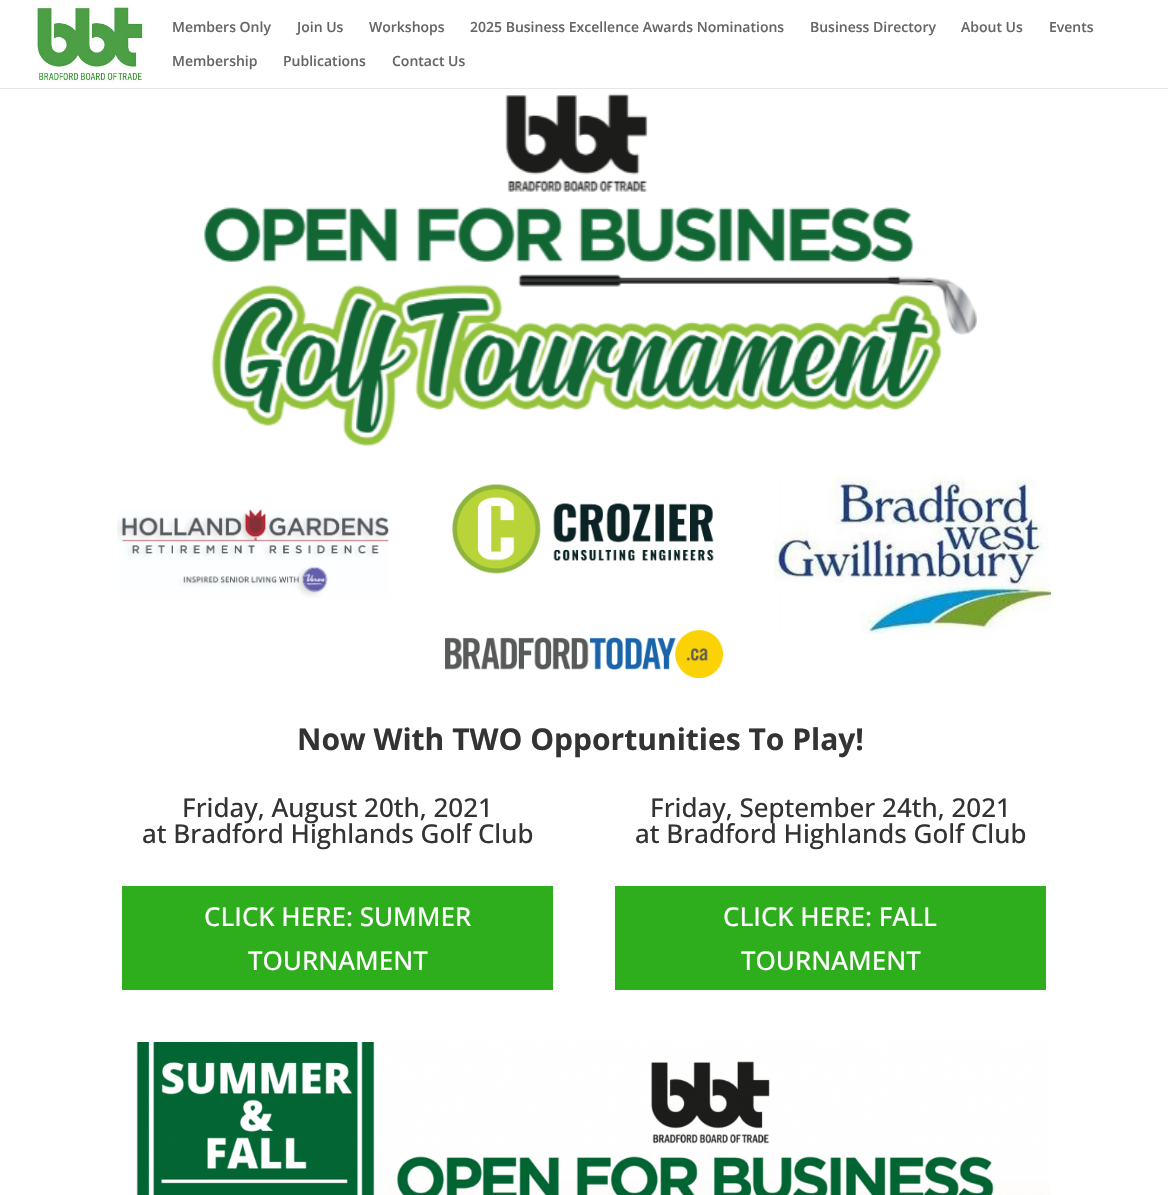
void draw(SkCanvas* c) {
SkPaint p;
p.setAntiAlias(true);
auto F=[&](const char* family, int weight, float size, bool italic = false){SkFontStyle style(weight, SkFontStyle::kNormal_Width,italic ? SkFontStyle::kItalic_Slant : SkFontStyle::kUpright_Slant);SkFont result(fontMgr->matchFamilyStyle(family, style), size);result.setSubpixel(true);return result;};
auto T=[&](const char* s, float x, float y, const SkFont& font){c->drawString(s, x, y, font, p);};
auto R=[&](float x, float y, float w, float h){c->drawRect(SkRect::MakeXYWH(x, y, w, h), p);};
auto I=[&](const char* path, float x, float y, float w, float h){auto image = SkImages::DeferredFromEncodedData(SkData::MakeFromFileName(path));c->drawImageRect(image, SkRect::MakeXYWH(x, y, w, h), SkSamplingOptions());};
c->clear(0xffffffff);
p.setColor(0xffe6e6e6);
R(0,88,1168,1);
I("1.png",34,5,112,77);
auto f1 = F("Open Sans",600,14);
p.setColor(0xff666666);
T("Members Only",172,32,f1);
T("Join Us",297,32,f1);
T("Workshops",369,32,f1);
T("2025 Business Excellence Awards Nominations",470,32,f1);
T("Business Directory",810,32,f1);
T("About Us",961,32,f1);
T("Events",1049,32,f1);
T("Membership",172,66,f1);
T("Publications",283,66,f1);
T("Contact Us",392,66,f1);
I("2.png",203,93,774,353);
I("3.png",117,509,273,89);
I("4.png",452,483,262,91);
I("5.png",445,630,278,48);
I("6.png",774,476,277,158);
auto f2 = F("Open Sans",700,30);
p.setColor(0xff333333);
T("Now With TWO Opportunities To Play!",297,750,f2);
auto f3 = F("Open Sans",500,26);
T("Friday, August 20th, 2021",182,817,f3);
T("at Bradford Highlands Golf Club",142,843,f3);
p.setColor(0xff2ead1d);
c->drawRoundRect(SkRect::MakeXYWH(119.5,883.5,436,109),.5,.5,p);
p.setStroke(true);
p.setStrokeWidth(5);
p.setColor(0xffffffff);
c->drawRoundRect(SkRect::MakeXYWH(119.5,883.5,436,109),.5,.5,p);
p.setStroke(false);
T("CLICK HERE: SUMMER",204,926,f3);
T("TOURNAMENT",248,970,f3);
p.setColor(0xff333333);
T("Friday, September 24th, 2021",650,817,f3);
T("at Bradford Highlands Golf Club",635,843,f3);
p.setColor(0xff2ead1d);
c->drawRoundRect(SkRect::MakeXYWH(612.5,883.5,436,109),.5,.5,p);
p.setStroke(true);
p.setColor(0xffffffff);
c->drawRoundRect(SkRect::MakeXYWH(612.5,883.5,436,109),.5,.5,p);
p.setStroke(false);
T("CLICK HERE: FALL",723,926,f3);
T("TOURNAMENT",741,970,f3);
I("7.png",136,1042,915,153);
}
